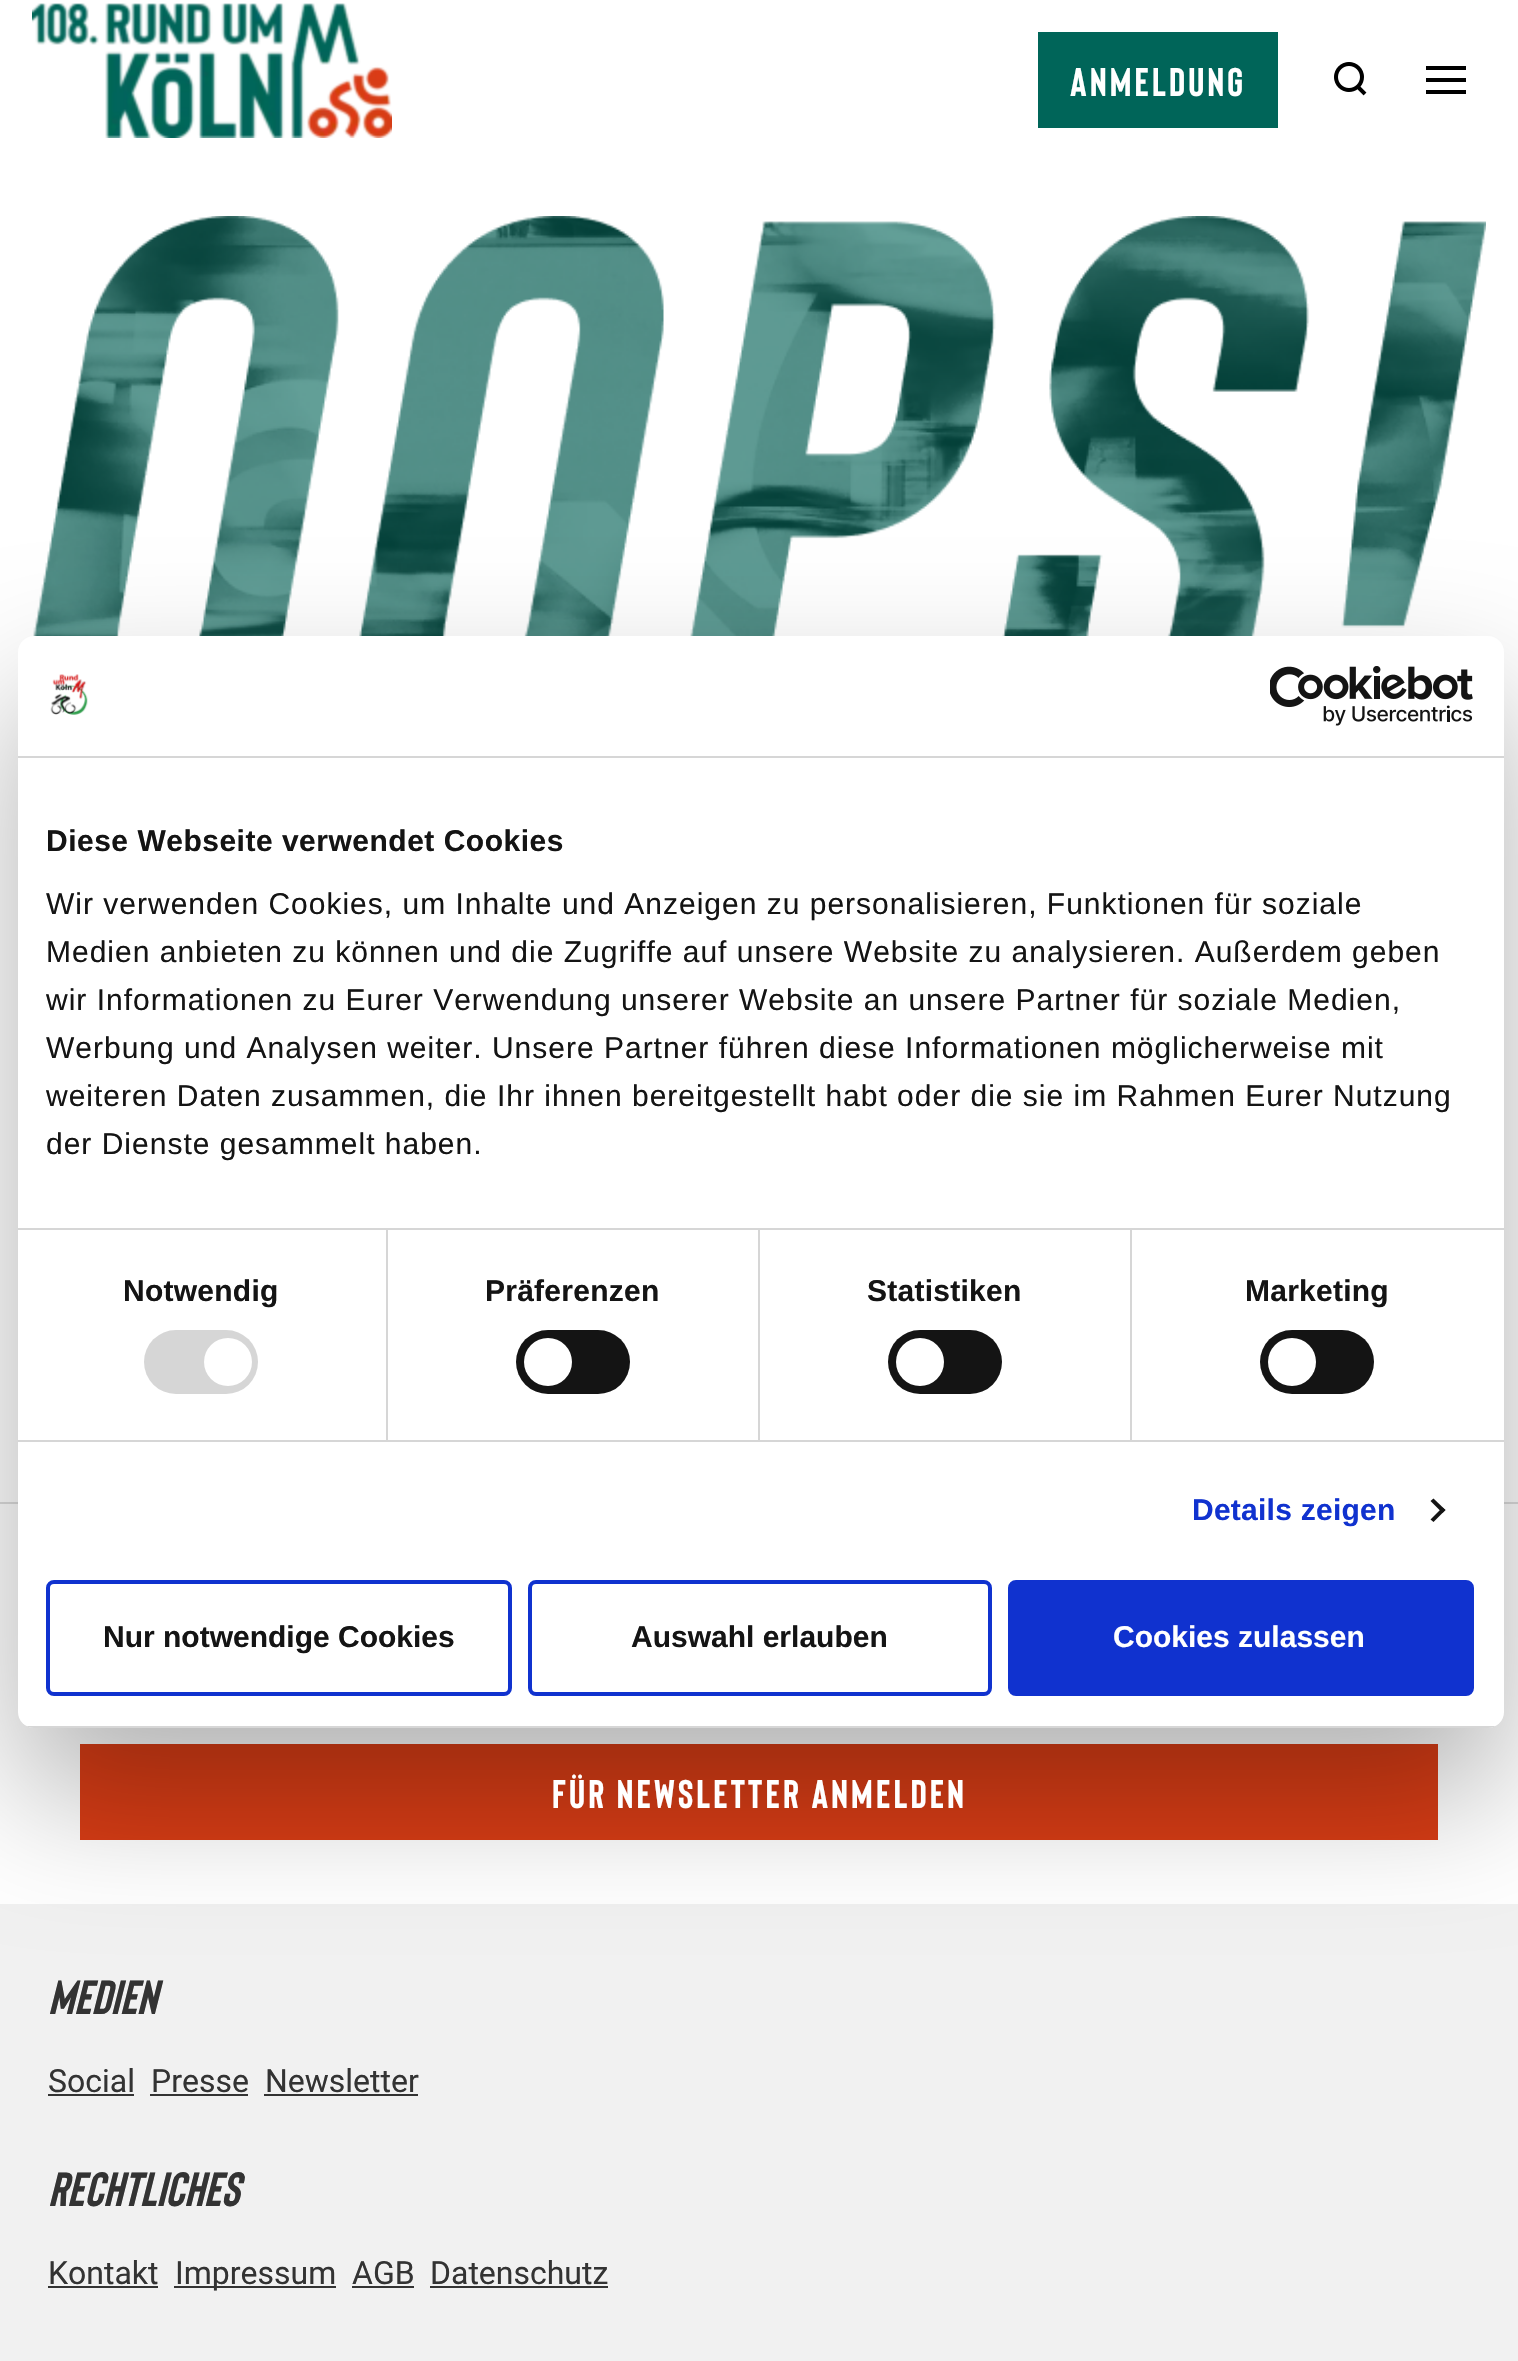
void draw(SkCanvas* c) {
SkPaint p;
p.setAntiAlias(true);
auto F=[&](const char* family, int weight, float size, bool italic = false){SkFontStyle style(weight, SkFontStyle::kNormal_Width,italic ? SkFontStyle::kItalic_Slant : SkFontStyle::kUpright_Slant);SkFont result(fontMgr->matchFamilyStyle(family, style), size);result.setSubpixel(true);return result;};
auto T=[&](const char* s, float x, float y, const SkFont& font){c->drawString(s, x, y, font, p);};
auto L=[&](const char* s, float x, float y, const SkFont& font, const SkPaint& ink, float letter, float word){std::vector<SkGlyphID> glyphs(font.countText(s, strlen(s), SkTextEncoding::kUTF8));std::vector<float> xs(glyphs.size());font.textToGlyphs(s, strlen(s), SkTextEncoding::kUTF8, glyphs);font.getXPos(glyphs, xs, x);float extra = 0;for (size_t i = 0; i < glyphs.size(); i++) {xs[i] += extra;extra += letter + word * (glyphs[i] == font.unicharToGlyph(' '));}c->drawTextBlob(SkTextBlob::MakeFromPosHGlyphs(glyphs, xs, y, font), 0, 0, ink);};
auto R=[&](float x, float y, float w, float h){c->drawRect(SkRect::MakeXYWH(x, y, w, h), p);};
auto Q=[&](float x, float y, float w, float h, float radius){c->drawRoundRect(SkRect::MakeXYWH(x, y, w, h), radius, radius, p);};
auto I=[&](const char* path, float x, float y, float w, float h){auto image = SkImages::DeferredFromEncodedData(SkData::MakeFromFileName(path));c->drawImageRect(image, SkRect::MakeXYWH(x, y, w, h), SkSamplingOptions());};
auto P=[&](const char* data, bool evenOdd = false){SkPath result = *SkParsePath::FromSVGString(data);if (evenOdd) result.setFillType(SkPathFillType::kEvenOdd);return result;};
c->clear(0xffffffff);
I("1.png",32,3,360,135);
p.setColor(0xff006559);
R(1038,32,240,96);
auto f1 = F("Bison",700,40);
p.setColor(0xffffffff);
L("Anmeldung",1070,96,f1,p,3.2,0);
I("2.png",1334,62,33,34);
p.setColor(0xff000000);
c->drawPath(P("M1426 66h40v4h-40zm0 12h40v4h-40zm40 12h-40v4h40z",true),p);
I("3.png",33,216,1453,421);
p.setColor(0xffdddddd);
R(0,1502,1518,2);
p.setColor(0xffd73c15);
R(80,1744,1358,96);
p.setColor(0xfff1f1f1);
R(0,1904,1518,457);
p.setColor(0x4d000000);
p.setMaskFilter(SkMaskFilter::MakeBlur(kNormal_SkBlurStyle, 68));
c->drawRoundRect(SkRect::MakeXYWH(18,700,1486,1092),16,16,p);
p.setMaskFilter(nullptr);
p.setColor(0xffffffff);
Q(18,636,1486,1092,16);
p.setColor(0xffd6d6d6);
R(18,756,1486,2);
I("4.png",50,674,38,41);
I("5.png",1270,666,203,60);
R(18,1228,1486,2);
auto f2 = F("Liberation Sans",700,30);
p.setColor(0xff141414);
L("Diese Webseite verwendet Cookies",46,851,f2,p,.5,0);
auto f3 = F("Liberation Sans",400,30);
L("Wir verwenden Cookies, um Inhalte und Anzeigen zu personalisieren, Funktionen für soziale",46,914,f3,p,1,0);
L("Medien anbieten zu können und die Zugriffe auf unsere Website zu analysieren. Außerdem geben",46,962,f3,p,1,0);
L("wir Informationen zu Eurer Verwendung unserer Website an unsere Partner für soziale Medien,",46,1010,f3,p,1,0);
L("Werbung und Analysen weiter. Unsere Partner führen diese Informationen möglicherweise mit",46,1058,f3,p,1,0);
L("weiteren Daten zusammen, die Ihr ihnen bereitgestellt habt oder die sie im Rahmen Eurer Nutzung",46,1106,f3,p,1,0);
L("der Dienste gesammelt haben.",46,1154,f3,p,1,0);
p.setColor(0xffd6d6d6);
R(18,1440,1486,2);
R(386,1230,2,210);
p.setColor(0xff141414);
L("Notwendig",123,1301,f2,p,.25,0);
p.setColor(0xffd6d6d6);
Q(144,1330,114,64,32);
p.setColor(0xffffffff);
c->drawCircle(228,1362,24,p);
p.setColor(0xffd6d6d6);
R(758,1230,2,210);
p.setColor(0xff141414);
L("Präferenzen",485,1301,f2,p,.25,0);
Q(516,1330,114,64,32);
p.setColor(0xffffffff);
c->drawCircle(548,1362,24,p);
p.setColor(0xffd6d6d6);
R(1130,1230,2,210);
p.setColor(0xff141414);
L("Statistiken",867,1301,f2,p,.25,0);
Q(888,1330,114,64,32);
p.setColor(0xffffffff);
c->drawCircle(920,1362,24,p);
p.setColor(0xff141414);
L("Marketing",1245,1301,f2,p,.25,0);
Q(1260,1330,114,64,32);
p.setColor(0xffffffff);
c->drawCircle(1292,1362,24,p);
p.setColor(0xff1032cf);
L("Details zeigen",1192,1520,f2,p,.25,0);
p.setColor(0xff141414);
c->drawPath(P("M1433.5 1498.5l12 11.5l-3 3l-12-12z"),p);
c->drawPath(P("M1442.5 1507.5l3 2.5l-12 12l-3-2.5z"),p);
c->save();
c->clipPath(P("M34 636h1454c9 0 16 7 16 16v1060c0 9-7 16-16 16h-1454c-9 0-16-7-16-16v-1060c0-9 7-16 16-16z"),true);
p.setColor(0xffd6d6d6);
R(18,1726,1486,2);
c->restore();
p.setStroke(true);
p.setStrokeWidth(4);
p.setColor(0xff1032cf);
c->drawRoundRect(SkRect::MakeXYWH(48,1582,462,112),6,6,p);
p.setStroke(false);
p.setColor(0xff141414);
T("Nur notwendige Cookies",103,1647,f2);
p.setStroke(true);
p.setColor(0xff1032cf);
c->drawRoundRect(SkRect::MakeXYWH(530,1582,460,112),6,6,p);
p.setStroke(false);
p.setColor(0xff141414);
T("Auswahl erlauben",631,1647,f2);
p.setColor(0xff1032cf);
c->drawRoundRect(SkRect::MakeXYWH(1010,1582,462,112),6,6,p);
p.setStroke(true);
c->drawRoundRect(SkRect::MakeXYWH(1010,1582,462,112),6,6,p);
p.setStroke(false);
p.setColor(0xffffffff);
T("Cookies zulassen",1113,1647,f2);
L("Für Newsletter anmelden",552,1808,f1,p,3.2,0);
auto f4 = F("Bison",700,48,true);
p.setColor(0xff333333);
T("MEDIEN",48,2014,f4);
auto f5 = F("Roboto",400,32);
T("Social",48,2092,f5);
R(48,2094,86,2);
T("Presse",151,2092,f5);
R(150,2094,98,2);
T("Newsletter",265,2092,f5);
R(264,2094,154,2);
T("RECHTLICHES",48,2206,f4);
T("Kontakt",48,2284,f5);
R(48,2286,110,2);
R(174,2286,162,2);
T("Impressum",175,2284,f5);
T("AGB",352,2284,f5);
R(352,2286,62,2);
T("Datenschutz",430,2284,f5);
R(430,2286,178,2);
}
